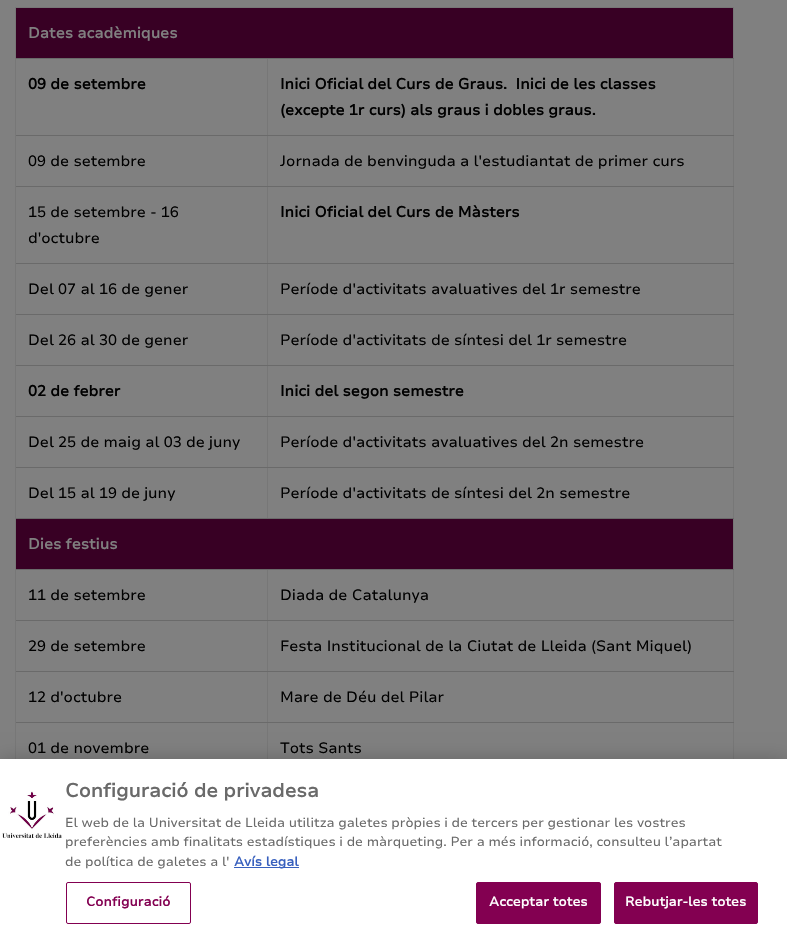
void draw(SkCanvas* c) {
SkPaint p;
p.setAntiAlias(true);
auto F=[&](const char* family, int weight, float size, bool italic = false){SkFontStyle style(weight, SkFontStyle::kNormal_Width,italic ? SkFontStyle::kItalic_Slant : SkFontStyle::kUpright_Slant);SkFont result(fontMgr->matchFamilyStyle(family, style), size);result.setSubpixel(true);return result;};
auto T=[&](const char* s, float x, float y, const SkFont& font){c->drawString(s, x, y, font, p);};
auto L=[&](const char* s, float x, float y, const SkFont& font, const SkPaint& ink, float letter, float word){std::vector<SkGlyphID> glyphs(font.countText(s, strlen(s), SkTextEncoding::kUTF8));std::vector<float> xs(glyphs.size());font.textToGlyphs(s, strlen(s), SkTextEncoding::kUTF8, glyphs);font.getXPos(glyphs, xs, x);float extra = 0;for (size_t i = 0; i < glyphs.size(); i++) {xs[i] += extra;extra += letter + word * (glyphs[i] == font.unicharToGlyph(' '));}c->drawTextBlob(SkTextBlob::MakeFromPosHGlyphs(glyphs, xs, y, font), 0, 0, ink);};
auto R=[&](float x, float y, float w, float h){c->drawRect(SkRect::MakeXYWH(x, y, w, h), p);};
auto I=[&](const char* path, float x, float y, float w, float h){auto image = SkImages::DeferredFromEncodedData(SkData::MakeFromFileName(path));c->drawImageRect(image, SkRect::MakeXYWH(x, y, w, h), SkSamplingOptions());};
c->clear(0xff808080);
p.setColor(0xff380024);
R(16,8,717,50);
p.setColor(0xff777777);
R(15,7,719,1);
R(733,58,1,701);
R(733,7,1,52);
p.setColor(0xff6a6a6a);
R(267,518,467,1);
p.setColor(0xff777777);
R(267,467,1,52);
p.setColor(0xff6a6a6a);
R(267,467,467,1);
p.setColor(0xff777777);
R(267,416,1,52);
p.setColor(0xff6a6a6a);
R(267,416,467,1);
p.setColor(0xff777777);
R(267,365,1,52);
p.setColor(0xff6a6a6a);
R(267,365,467,1);
p.setColor(0xff777777);
R(267,314,1,52);
p.setColor(0xff6a6a6a);
R(267,314,467,1);
p.setColor(0xff777777);
R(267,263,1,52);
p.setColor(0xff6a6a6a);
R(267,263,467,1);
p.setColor(0xff777777);
R(267,186,1,78);
p.setColor(0xff6a6a6a);
R(267,186,467,1);
p.setColor(0xff777777);
R(267,135,1,52);
p.setColor(0xff6a6a6a);
R(267,135,467,1);
p.setColor(0xff777777);
R(267,58,1,78);
R(267,722,1,37);
p.setColor(0xff6a6a6a);
R(267,722,467,1);
p.setColor(0xff777777);
R(267,671,1,52);
p.setColor(0xff6a6a6a);
R(267,671,467,1);
p.setColor(0xff777777);
R(267,620,1,52);
p.setColor(0xff6a6a6a);
R(267,620,467,1);
p.setColor(0xff777777);
R(267,569,1,52);
R(15,722,1,37);
p.setColor(0xff6a6a6a);
R(15,722,253,1);
p.setColor(0xff777777);
R(15,671,1,52);
p.setColor(0xff6a6a6a);
R(15,671,253,1);
p.setColor(0xff777777);
R(15,620,1,52);
p.setColor(0xff6a6a6a);
R(15,620,253,1);
p.setColor(0xff777777);
R(15,569,1,52);
p.setColor(0xff6a6a6a);
R(15,569,719,1);
p.setColor(0xff777777);
R(15,518,1,52);
p.setColor(0xff6a6a6a);
R(15,518,253,1);
p.setColor(0xff777777);
R(15,467,1,52);
p.setColor(0xff6a6a6a);
R(15,467,253,1);
p.setColor(0xff777777);
R(15,416,1,52);
p.setColor(0xff6a6a6a);
R(15,416,253,1);
p.setColor(0xff777777);
R(15,365,1,52);
p.setColor(0xff6a6a6a);
R(15,365,253,1);
p.setColor(0xff777777);
R(15,314,1,52);
p.setColor(0xff6a6a6a);
R(15,314,253,1);
p.setColor(0xff777777);
R(15,263,1,52);
p.setColor(0xff6a6a6a);
R(15,263,253,1);
p.setColor(0xff777777);
R(15,186,1,78);
p.setColor(0xff6a6a6a);
R(15,186,253,1);
p.setColor(0xff777777);
R(15,135,1,52);
p.setColor(0xff6a6a6a);
R(15,135,253,1);
p.setColor(0xff777777);
R(15,58,1,78);
p.setColor(0xff6a6a6a);
R(15,58,719,1);
p.setColor(0xff777777);
R(15,7,1,52);
auto f1 = F("Nunito Sans",700,15);
p.setColor(0xff808080);
T("Dates acadèmiques",28,38,f1);
p.setColor(0xff000000);
T("09 de setembre",28,89,f1);
T("Inici Oficial del Curs de Graus.  Inici de les classes",280,89,f1);
T("(excepte 1r curs) als graus i dobles graus.",280,115,f1);
auto f2 = F("Nunito Sans",400,15);
T("09 de setembre",28,166,f2);
T("Jornada de benvinguda a l'estudiantat de primer curs",280,166,f2);
T("15 de setembre - 16",28,217,f2);
T("d'octubre",28,243,f2);
T("Inici Oficial del Curs de Màsters",280,217,f1);
T("Del 07 al 16 de gener",28,294,f2);
T("Període d'activitats avaluatives del 1r semestre",280,294,f2);
T("Del 26 al 30 de gener",28,345,f2);
T("Període d'activitats de síntesi del 1r semestre",280,345,f2);
T("02 de febrer",28,396,f1);
T("Inici del segon semestre",280,396,f1);
T("Del 25 de maig al 03 de juny",28,447,f2);
T("Període d'activitats avaluatives del 2n semestre",280,447,f2);
T("Del 15 al 19 de juny",28,498,f2);
T("Període d'activitats de síntesi del 2n semestre",280,498,f2);
p.setColor(0xff380024);
R(16,519,717,50);
p.setColor(0xff808080);
T("Dies festius",28,549,f1);
p.setColor(0xff000000);
T("11 de setembre",28,600,f2);
T("Diada de Catalunya",280,600,f2);
T("29 de setembre",28,651,f2);
T("Festa Institucional de la Ciutat de Lleida (Sant Miquel)",280,651,f2);
T("12 d'octubre",28,702,f2);
T("Mare de Déu del Pilar",280,702,f2);
T("01 de novembre",28,753,f2);
T("Tots Sants",280,753,f2);
p.setColor(0x33000000);
p.setMaskFilter(SkMaskFilter::MakeBlur(kNormal_SkBlurStyle, 9));
c->drawRect(SkRect::MakeXYWH(0,759,787,187),p);
p.setMaskFilter(nullptr);
p.setColor(0xffffffff);
R(0,759,787,187);
I("1.png",2,791,60,47);
auto f3 = F("Nunito Sans",700,19.25);
p.setColor(0xff696969);
T("Configuració de privadesa",65,797,f3);
auto f4 = F("Nunito Sans",400,13);
T("El web de la Universitat de Lleida utilitza galetes pròpies i de tercers per gestionar les vostres",65,827,f4);
T("preferències amb finalitats estadístiques i de màrqueting. Per a més informació, consulteu l’apartat",65,846,f4);
T("de política de galetes a l'",65,866,f4);
p.setColor(0xff3860be);
R(234,867,65,1);
auto f5 = F("Nunito Sans",700,13);
T("Avís legal",234,866,f5);
p.setStroke(true);
p.setStrokeWidth(1);
p.setColor(0xff830051);
c->drawRoundRect(SkRect::MakeXYWH(66.5,882.5,124,41),1.5,1.5,p);
p.setStroke(false);
L("Configuració",86,906,f5,p,.1,0);
c->drawRoundRect(SkRect::MakeXYWH(476.5,882.5,124,41),1.5,1.5,p);
p.setStroke(true);
c->drawRoundRect(SkRect::MakeXYWH(476.5,882.5,124,41),1.5,1.5,p);
p.setStroke(false);
p.setColor(0xffffffff);
L("Acceptar totes",489,906,f5,p,.1,0);
p.setColor(0xff830051);
c->drawRoundRect(SkRect::MakeXYWH(614.5,882.5,143,41),1.5,1.5,p);
p.setStroke(true);
c->drawRoundRect(SkRect::MakeXYWH(614.5,882.5,143,41),1.5,1.5,p);
p.setStroke(false);
p.setColor(0xffffffff);
L("Rebutjar-les totes",625,906,f5,p,.1,0);
}
